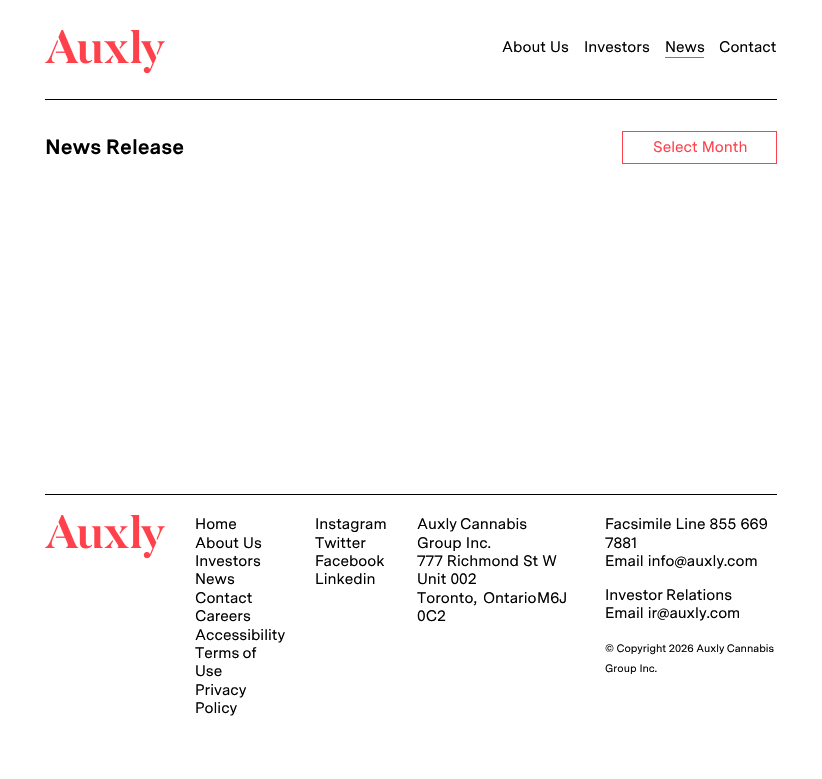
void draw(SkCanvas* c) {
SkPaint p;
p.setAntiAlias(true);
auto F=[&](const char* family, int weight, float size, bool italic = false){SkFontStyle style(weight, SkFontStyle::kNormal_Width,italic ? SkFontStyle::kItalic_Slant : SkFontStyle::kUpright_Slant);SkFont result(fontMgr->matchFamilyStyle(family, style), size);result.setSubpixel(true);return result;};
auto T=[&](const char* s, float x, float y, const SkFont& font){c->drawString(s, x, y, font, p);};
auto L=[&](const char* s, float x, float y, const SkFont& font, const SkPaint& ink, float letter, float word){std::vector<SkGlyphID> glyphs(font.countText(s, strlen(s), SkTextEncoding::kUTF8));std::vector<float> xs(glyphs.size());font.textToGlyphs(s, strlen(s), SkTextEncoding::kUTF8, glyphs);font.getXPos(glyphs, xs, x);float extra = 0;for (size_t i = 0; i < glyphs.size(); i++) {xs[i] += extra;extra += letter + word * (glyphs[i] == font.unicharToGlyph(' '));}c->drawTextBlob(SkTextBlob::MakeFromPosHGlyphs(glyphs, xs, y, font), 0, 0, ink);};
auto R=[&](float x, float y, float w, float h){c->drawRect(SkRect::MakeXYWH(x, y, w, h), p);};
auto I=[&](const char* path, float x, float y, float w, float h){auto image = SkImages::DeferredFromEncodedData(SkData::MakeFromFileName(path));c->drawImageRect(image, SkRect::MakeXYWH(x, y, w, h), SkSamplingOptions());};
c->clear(0xffffffff);
I("1.png",45,30,120,43);
auto f1 = F("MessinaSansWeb",400,15.25);
p.setColor(0xff000000);
T("About Us",502,52,f1);
T("Investors",584,52,f1);
p.setColor(0xffff414b);
R(665,57,39,1);
p.setColor(0xff000000);
T("News",665,52,f1);
T("Contact",719,52,f1);
R(45,99,732,1);
auto f2 = F("MessinaSansWeb",700,20.75);
L("News Release",45,154,f2,p,0,-1);
p.setStroke(true);
p.setStrokeWidth(1);
p.setColor(0xffff414b);
c->drawRect(SkRect::MakeXYWH(622.5,131.5,154,32),p);
p.setStroke(false);
T("Select Month",653,152,f1);
p.setColor(0xff000000);
R(45,494,732,1);
I("2.png",45,515,120,44);
T("Home",195,529,f1);
T("About Us",195,548,f1);
T("Investors",195,566,f1);
T("News",195,584,f1);
T("Contact",195,603,f1);
T("Careers",195,621,f1);
T("Accessibility",195,640,f1);
L("Terms of",195,658,f1,p,0,-1);
T("Use",195,676,f1);
T("Privacy",195,695,f1);
T("Policy",195,713,f1);
T("Instagram",315,529,f1);
T("Twitter",315,548,f1);
T("Facebook",315,566,f1);
T("Linkedin",315,584,f1);
L("Auxly Cannabis",417,529,f1,p,0,-1);
T("Group Inc.",417,548,f1);
T("777 Richmond St W",417,566,f1);
T("Unit 002",417,584,f1);
L("Toronto, Ontario",417,603,f1,p,0,2);
T("M6J",537,603,f1);
T("0C2",417,621,f1);
T("Facsimile Line 855 669",605,529,f1);
T("7881",605,548,f1);
T("Email info@auxly.com",605,566,f1);
L("Investor Relations",605,600,f1,p,0,-1);
T("Email ir@auxly.com",605,618,f1);
auto f3 = F("MessinaSansWeb",400,10.75);
L("© Copyright 2026 Auxly Cannabis",605,652,f3,p,0,-.5);
T("Group Inc.",605,672,f3);
}
